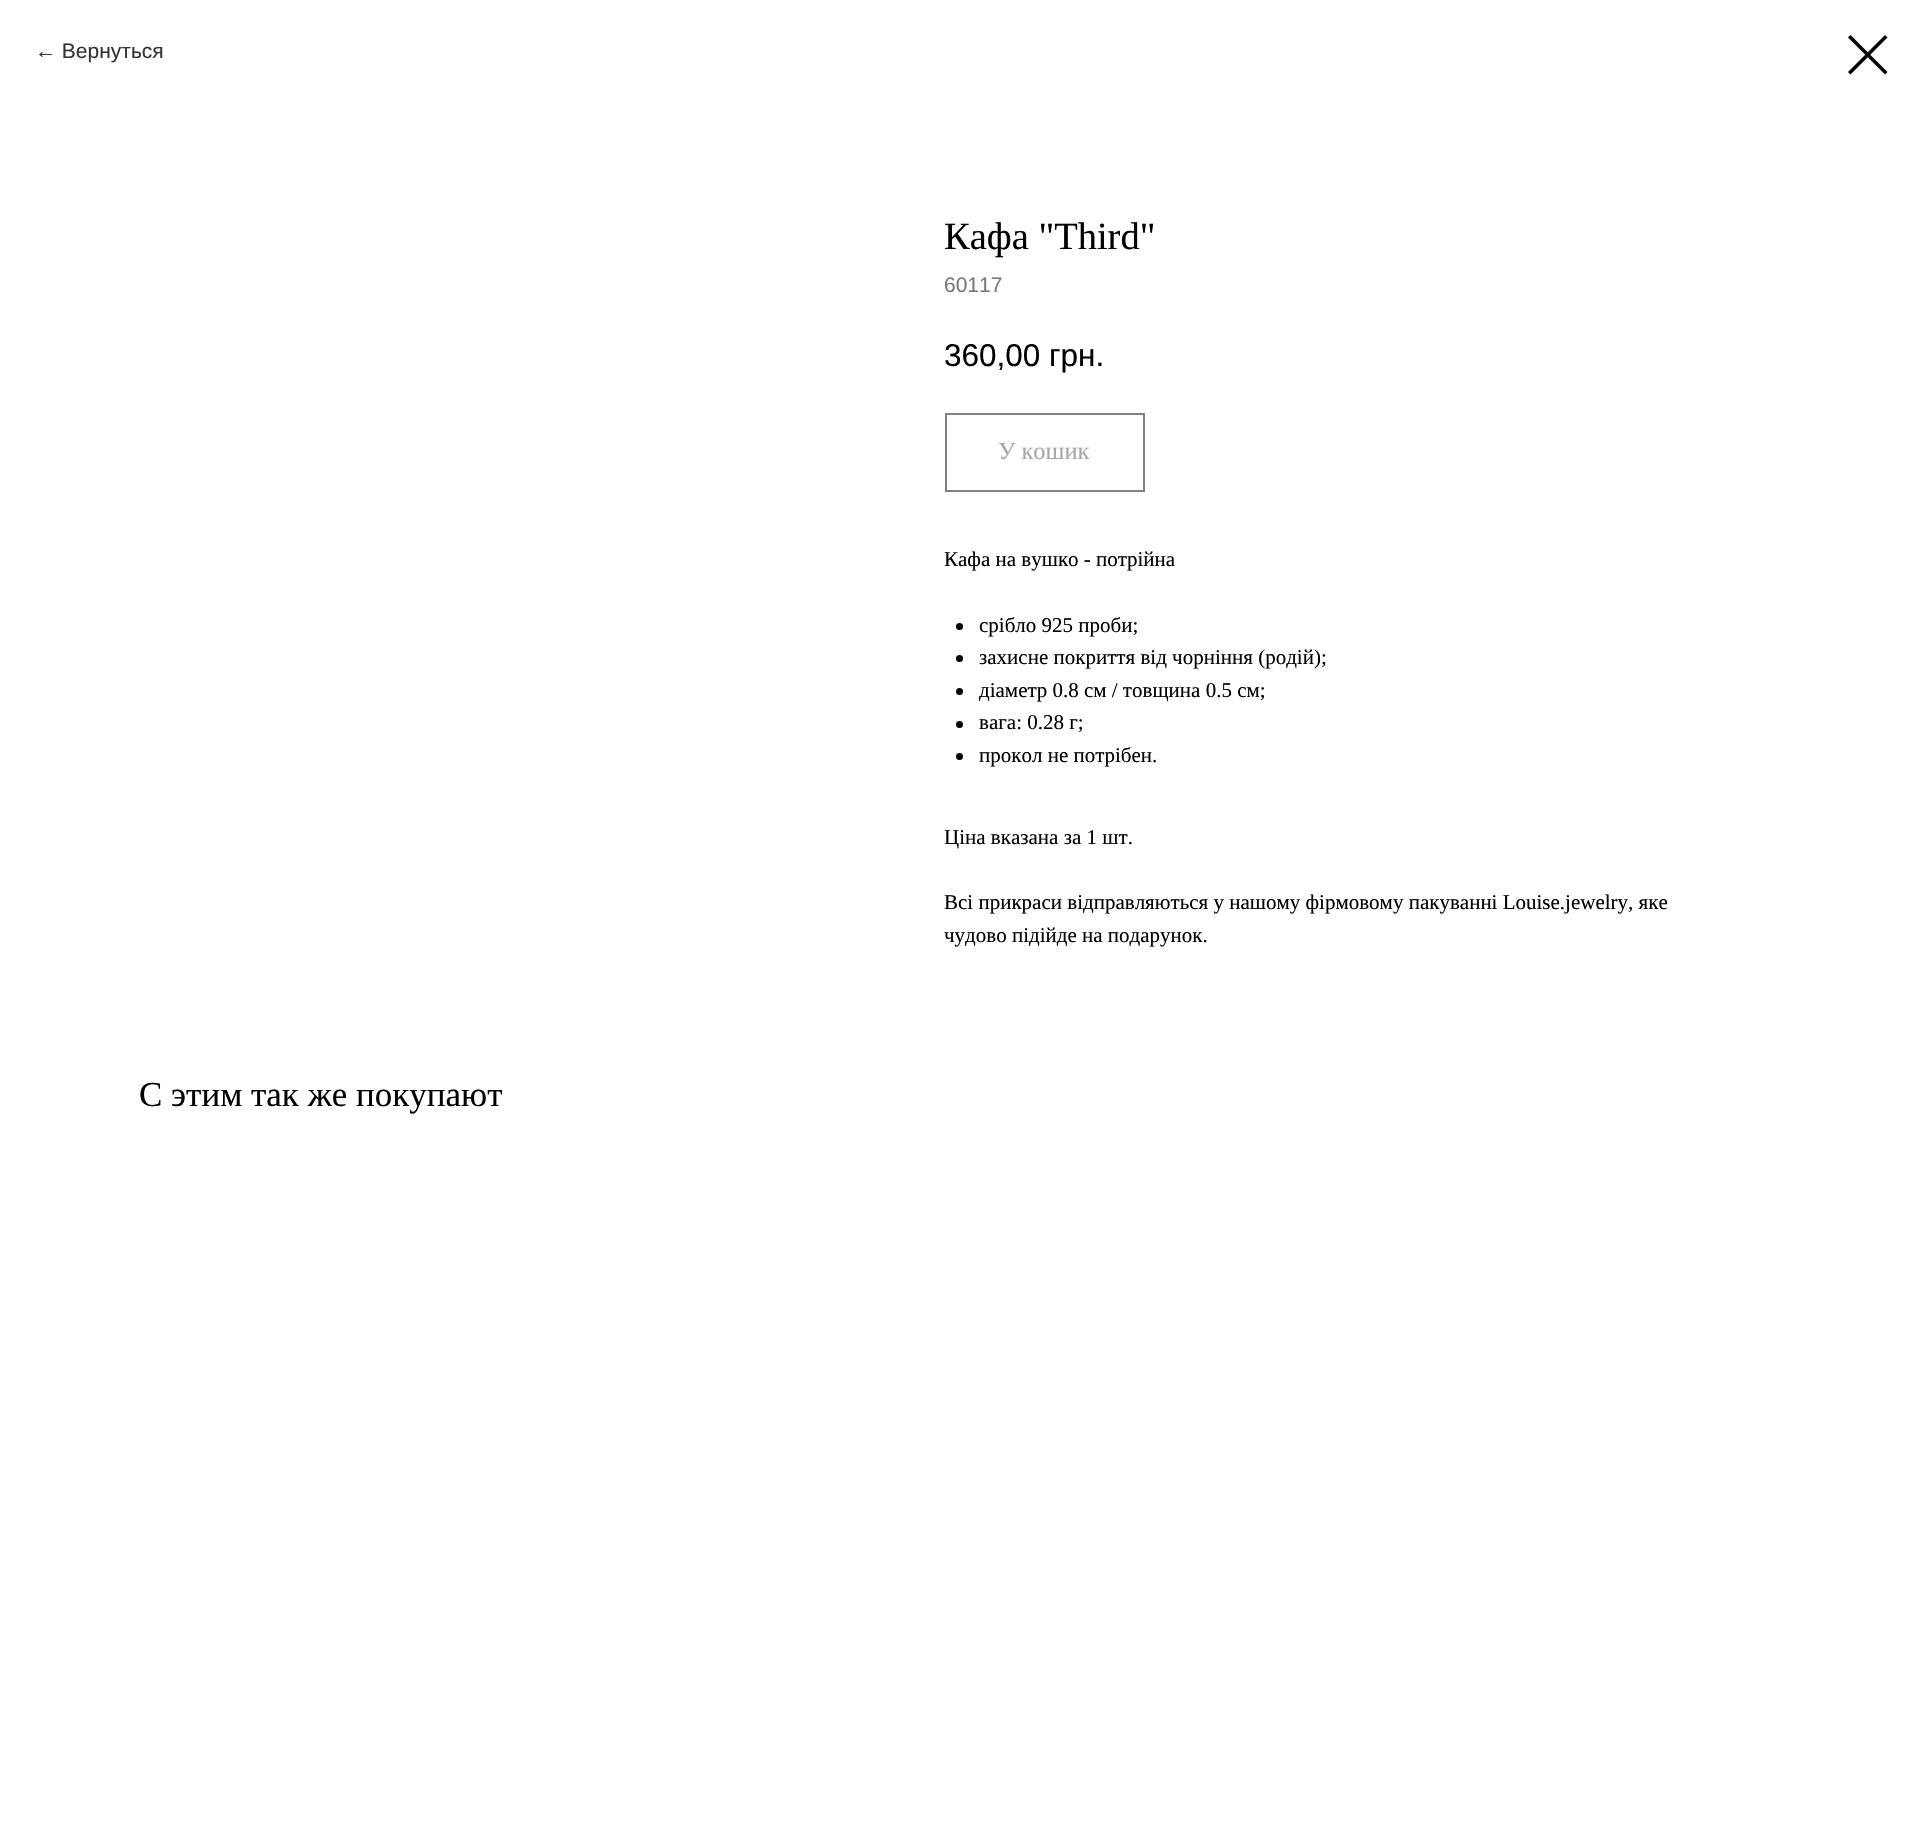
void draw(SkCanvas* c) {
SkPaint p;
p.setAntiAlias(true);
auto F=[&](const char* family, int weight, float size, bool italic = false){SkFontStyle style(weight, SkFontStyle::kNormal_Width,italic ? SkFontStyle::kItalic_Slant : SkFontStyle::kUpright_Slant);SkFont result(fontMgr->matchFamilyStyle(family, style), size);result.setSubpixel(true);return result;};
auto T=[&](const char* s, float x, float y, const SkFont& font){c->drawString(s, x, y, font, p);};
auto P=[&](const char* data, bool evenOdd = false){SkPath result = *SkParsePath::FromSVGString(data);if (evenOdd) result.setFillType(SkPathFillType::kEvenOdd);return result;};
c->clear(0xffffffff);
auto f1 = F("Liberation Sans",400,21);
p.setColor(0xff333333);
T("← Вернуться",35,58,f1);
p.setColor(0xff000000);
c->drawPath(P("M1848 37.5l2.5-2.5l37 37l-2.5 2.5z",true),p);
c->drawPath(P("M1885 35l2.5 2.5l-37 37l-2.5-2.5z",true),p);
auto f2 = F("Liberation Serif",400,38.5);
T("Кафа \"Third\"",944,249,f2);
p.setColor(0xff777777);
T("60117",944,292,f1);
auto f3 = F("Liberation Sans",400,31.5);
p.setColor(0xff000000);
T("360,00 грн.",944,366,f3);
p.setStroke(true);
p.setStrokeWidth(2);
p.setColor(0xff808080);
c->drawRect(SkRect::MakeXYWH(946,414,198,77),p);
auto f4 = F("Liberation Serif",400,24.5);
p.setStroke(false);
p.setColor(0xffa6a6a6);
T("У кошик",998,459,f4);
auto f5 = F("Liberation Serif",400,21);
p.setColor(0xff000000);
T("Кафа на вушко - потрійна",944,566,f5);
c->drawCircle(959.5,626.5,3.5,p);
T("срібло 925 проби;",979,632,f5);
c->drawCircle(959.5,658.5,3.5,p);
T("захисне покриття від чорніння (родій);",979,664,f5);
c->drawCircle(959.5,691.5,3.5,p);
T("діаметр 0.8 см / товщина 0.5 cм;",979,697,f5);
c->drawCircle(959.5,724.5,3.5,p);
T("вага: 0.28 г;",979,729,f5);
c->drawCircle(959.5,756.5,3.5,p);
T("прокол не потрібен.",979,762,f5);
T("Ціна вказана за 1 шт.",944,844,f5);
T("Всі прикраси відправляються у нашому фірмовому пакуванні Louise.jewelry, яке",944,909,f5);
T("чудово підійде на подарунок.",944,942,f5);
auto f6 = F("Liberation Serif",400,35);
T("С этим так же покупают",139,1106,f6);
}
